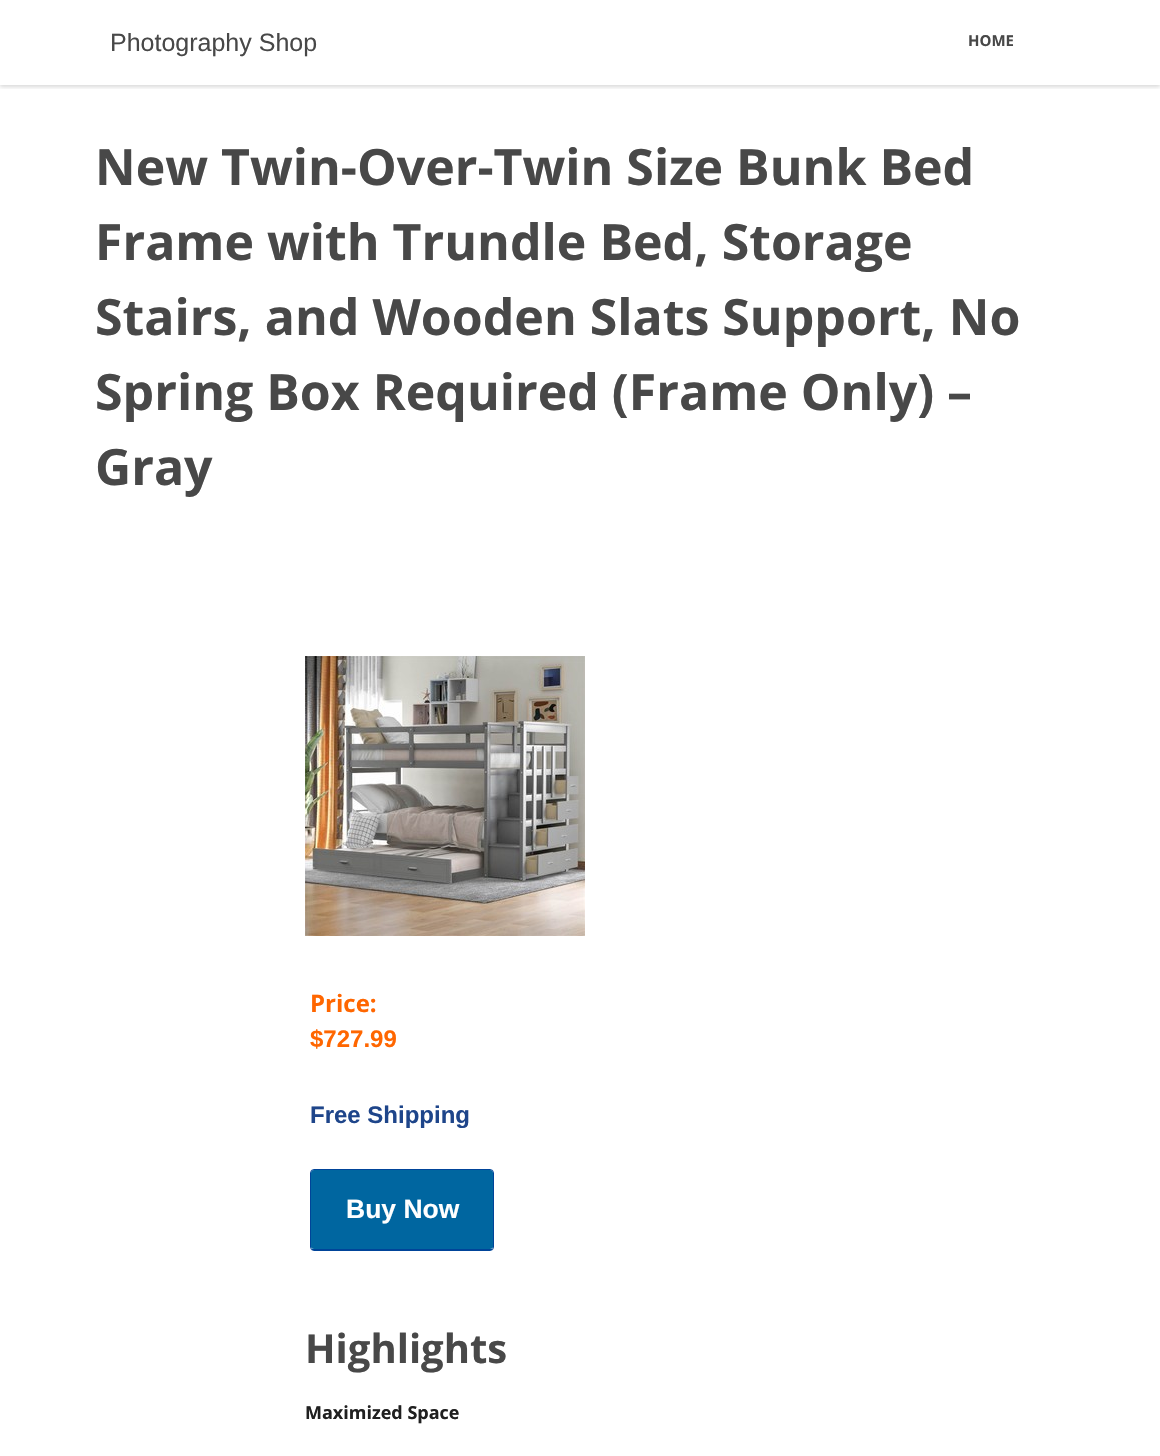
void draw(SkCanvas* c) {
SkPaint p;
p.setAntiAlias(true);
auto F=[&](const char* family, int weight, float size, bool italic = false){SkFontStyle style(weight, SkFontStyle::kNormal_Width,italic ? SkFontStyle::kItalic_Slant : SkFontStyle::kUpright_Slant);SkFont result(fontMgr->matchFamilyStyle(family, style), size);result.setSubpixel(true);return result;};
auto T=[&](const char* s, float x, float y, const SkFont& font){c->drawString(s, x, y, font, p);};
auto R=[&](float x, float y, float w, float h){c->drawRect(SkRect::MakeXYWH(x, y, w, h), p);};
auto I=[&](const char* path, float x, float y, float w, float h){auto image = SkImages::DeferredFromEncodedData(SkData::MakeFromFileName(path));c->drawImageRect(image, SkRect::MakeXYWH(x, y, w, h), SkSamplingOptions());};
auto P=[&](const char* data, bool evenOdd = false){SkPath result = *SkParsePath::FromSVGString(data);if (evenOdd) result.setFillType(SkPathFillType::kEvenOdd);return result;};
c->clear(0xffffffff);
c->save();
c->clipRect(SkRect::MakeXYWH(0,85,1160,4));
p.setColor(0x26000000);
p.setMaskFilter(SkMaskFilter::MakeBlur(kNormal_SkBlurStyle, 2));
c->drawRect(SkRect::MakeXYWH(0,2,1160,85),p);
p.setMaskFilter(nullptr);
c->restore();
auto f1 = F("Liberation Sans",400,25);
p.setColor(0xff484848);
T("Photography Shop",110,51,f1);
auto f2 = F("Open Sans",700,15);
T("HOME",968,46,f2);
auto f3 = F("Open Sans",700,50);
T("New Twin-Over-Twin Size Bunk Bed",95,185,f3);
T("Frame with Trundle Bed, Storage",95,260,f3);
T("Stairs, and Wooden Slats Support, No",95,335,f3);
T("Spring Box Required (Frame Only) –",95,410,f3);
T("Gray",95,485,f3);
I("1.png",305,656,280,280);
auto f4 = F("Open Sans",700,24);
p.setColor(0xffff6600);
T("Price:",310,1012,f4);
auto f5 = F("Liberation Sans",700,24);
T("$727.99",310,1047,f5);
p.setColor(0xff1e458a);
T("Free Shipping",310,1123,f5);
p.setColor(0xff0066a0);
c->drawPath(P("M314 1170h176c2 0 3 1 3 3v74c0 1-1 2-3 2h-176c-2 0-3-1-3-2v-74c0-2 1-3 3-3z"),p);
p.setStroke(true);
p.setStrokeWidth(1);
p.setColor(0xff004499);
c->drawRoundRect(SkRect::MakeXYWH(310.5,1169.5,183,81),3.5,3.5,p);
p.setStroke(false);
R(312,1249,180,1);
auto f6 = F("Liberation Sans",700,26.5);
p.setColor(0xffffffff);
T("Buy Now",346,1218,f6);
auto f7 = F("Open Sans",700,40);
p.setColor(0xff484848);
T("Highlights",305,1363,f7);
auto f8 = F("Open Sans",700,18);
p.setColor(0xff202020);
T("Maximized Space",305,1419,f8);
}
